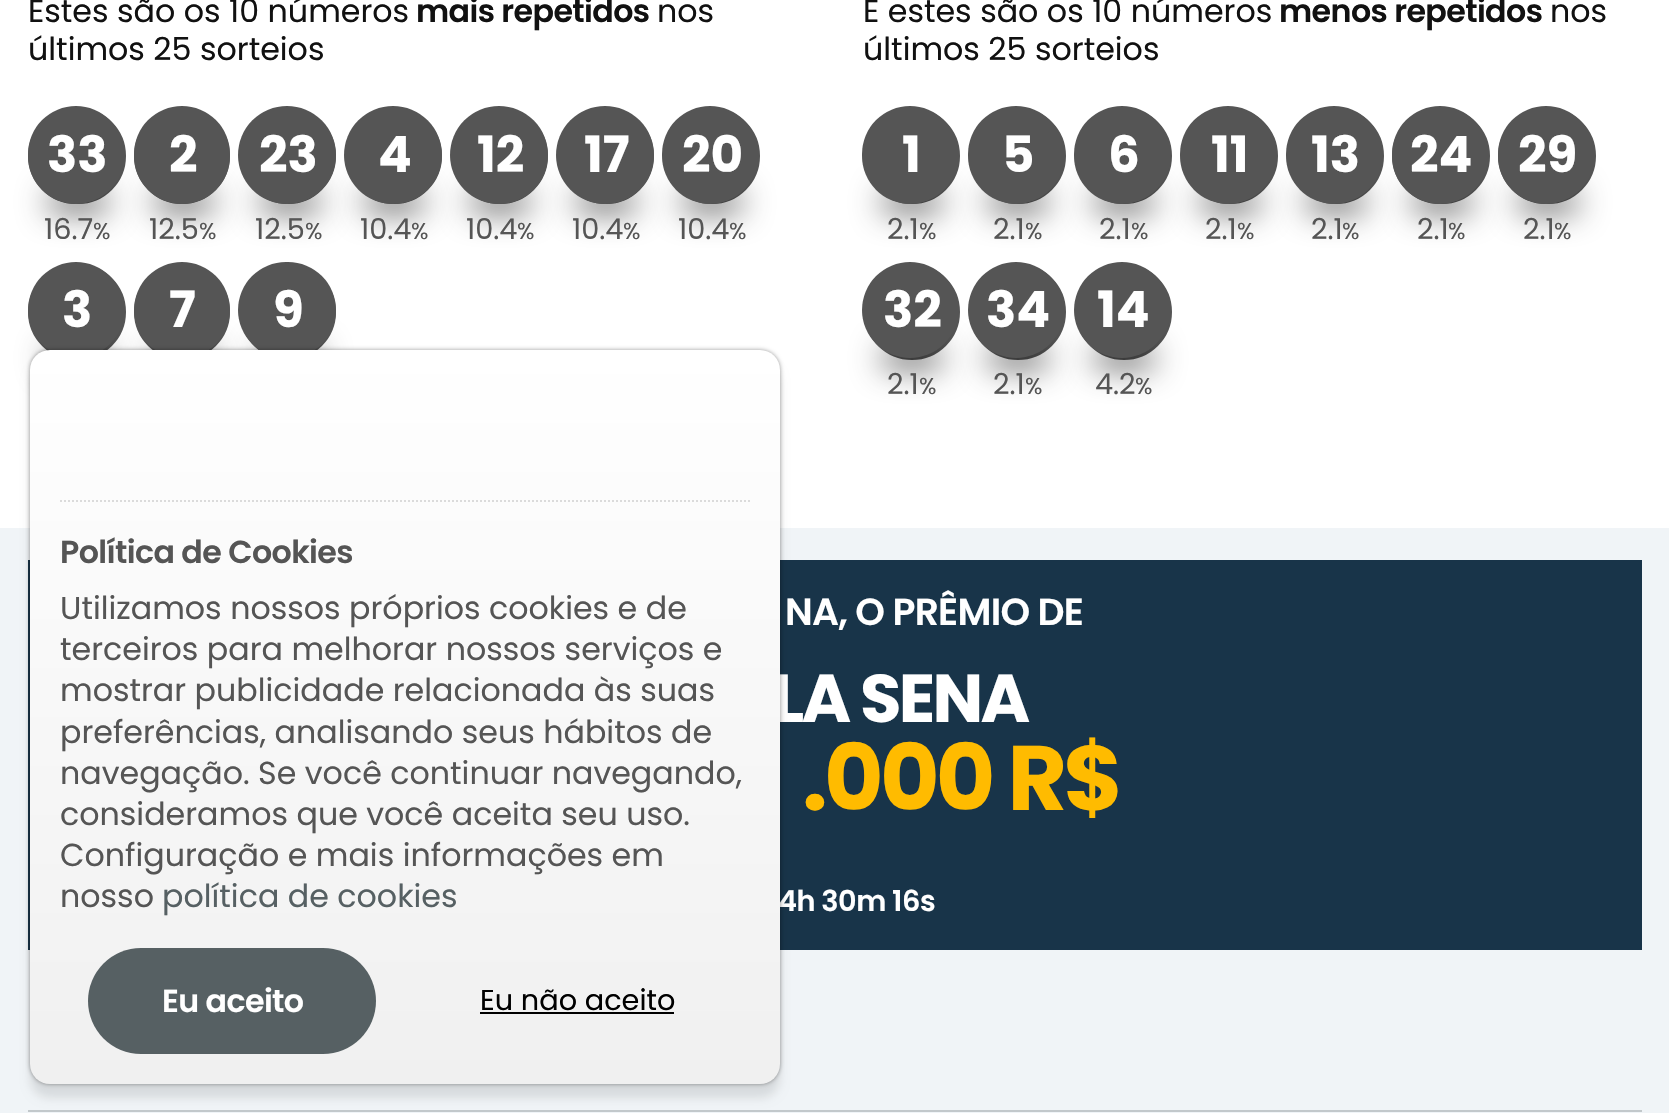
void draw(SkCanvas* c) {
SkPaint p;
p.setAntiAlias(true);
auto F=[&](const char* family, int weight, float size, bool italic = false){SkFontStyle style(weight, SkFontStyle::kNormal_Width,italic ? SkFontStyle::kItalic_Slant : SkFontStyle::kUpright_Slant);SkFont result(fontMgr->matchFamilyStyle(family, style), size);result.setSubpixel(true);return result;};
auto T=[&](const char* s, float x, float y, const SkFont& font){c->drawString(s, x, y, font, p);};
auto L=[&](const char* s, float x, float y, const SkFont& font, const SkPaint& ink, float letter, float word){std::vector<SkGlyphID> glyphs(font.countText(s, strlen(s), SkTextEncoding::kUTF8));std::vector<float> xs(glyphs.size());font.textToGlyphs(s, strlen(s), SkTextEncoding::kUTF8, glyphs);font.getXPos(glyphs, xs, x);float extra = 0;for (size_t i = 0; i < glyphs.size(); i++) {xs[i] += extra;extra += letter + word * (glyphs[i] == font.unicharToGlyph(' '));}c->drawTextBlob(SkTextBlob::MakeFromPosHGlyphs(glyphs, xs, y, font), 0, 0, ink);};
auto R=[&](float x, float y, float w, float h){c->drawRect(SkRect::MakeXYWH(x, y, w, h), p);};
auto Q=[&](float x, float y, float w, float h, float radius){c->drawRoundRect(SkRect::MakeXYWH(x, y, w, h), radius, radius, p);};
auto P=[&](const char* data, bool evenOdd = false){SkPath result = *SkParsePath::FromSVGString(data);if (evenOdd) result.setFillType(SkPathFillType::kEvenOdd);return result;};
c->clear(0xffffffff);
auto f1 = F("Poppins",400,31.7);
p.setColor(0xff111111);
T("Estes são os 10 números",28,22,f1);
auto f2 = F("Poppins",600,31.7);
L("mais repetidos",416,22,f2,p,-.6,0);
T("nos",657,22,f1);
T("últimos 25 sorteios",28,60,f1);
p.setStroke(true);
p.setStrokeWidth(6);
p.setColor(0xff555555);
c->drawRoundRect(SkRect::MakeXYWH(31,111,92,90),45,45,p);
p.setStroke(false);
p.setColor(0xcc000000);
p.setMaskFilter(SkMaskFilter::MakeBlur(kNormal_SkBlurStyle, 16));
c->drawRoundRect(SkRect::MakeXYWH(48,194,60,16),8,8,p);
p.setMaskFilter(nullptr);
p.setColor(0xff555555);
Q(28,106,96,98,48);
auto f3 = F("Poppins",700,50);
p.setColor(0xffffffff);
T("33",47,172,f3);
auto f4 = F("Poppins",400,28.75);
p.setColor(0xff555555);
T("16.7",44,239,f4);
auto f5 = F("Poppins",400,23);
T("%",93,239,f5);
p.setStroke(true);
c->drawCircle(182,156,45,p);
p.setStroke(false);
p.setColor(0xcc000000);
p.setMaskFilter(SkMaskFilter::MakeBlur(kNormal_SkBlurStyle, 16));
c->drawRoundRect(SkRect::MakeXYWH(154,194,60,16),8,8,p);
p.setMaskFilter(nullptr);
p.setColor(0xff555555);
Q(134,106,96,98,48);
p.setColor(0xffffffff);
T("2",169,172,f3);
p.setColor(0xff555555);
T("12.5",149,239,f4);
T("%",199,239,f5);
p.setStroke(true);
c->drawCircle(288,156,45,p);
p.setStroke(false);
p.setColor(0xcc000000);
p.setMaskFilter(SkMaskFilter::MakeBlur(kNormal_SkBlurStyle, 16));
c->drawRoundRect(SkRect::MakeXYWH(260,194,60,16),8,8,p);
p.setMaskFilter(nullptr);
p.setColor(0xff555555);
c->drawCircle(287,155,49,p);
p.setColor(0xffffffff);
T("23",259,172,f3);
p.setColor(0xff555555);
T("12.5",255,239,f4);
T("%",305,239,f5);
p.setStroke(true);
c->drawCircle(394,156,45,p);
p.setStroke(false);
p.setColor(0xcc000000);
p.setMaskFilter(SkMaskFilter::MakeBlur(kNormal_SkBlurStyle, 16));
c->drawRoundRect(SkRect::MakeXYWH(364,194,60,16),8,8,p);
p.setMaskFilter(nullptr);
p.setColor(0xff555555);
c->drawCircle(393,155,49,p);
p.setColor(0xffffffff);
T("4",378,172,f3);
p.setColor(0xff555555);
T("10.4",360,239,f4);
T("%",411,239,f5);
p.setStroke(true);
c->drawCircle(500,156,45,p);
p.setStroke(false);
p.setColor(0xcc000000);
p.setMaskFilter(SkMaskFilter::MakeBlur(kNormal_SkBlurStyle, 16));
c->drawRoundRect(SkRect::MakeXYWH(470,194,60,16),8,8,p);
p.setMaskFilter(nullptr);
p.setColor(0xff555555);
c->drawCircle(499,155,49,p);
p.setColor(0xffffffff);
T("12",477,172,f3);
p.setColor(0xff555555);
T("10.4",466,239,f4);
T("%",517,239,f5);
p.setStroke(true);
c->drawCircle(606,156,45,p);
p.setStroke(false);
p.setColor(0xcc000000);
p.setMaskFilter(SkMaskFilter::MakeBlur(kNormal_SkBlurStyle, 16));
c->drawRoundRect(SkRect::MakeXYWH(576,194,60,16),8,8,p);
p.setMaskFilter(nullptr);
p.setColor(0xff555555);
c->drawCircle(605,155,49,p);
p.setColor(0xffffffff);
T("17",584,172,f3);
p.setColor(0xff555555);
T("10.4",572,239,f4);
T("%",623,239,f5);
p.setStroke(true);
c->drawCircle(712,156,45,p);
p.setStroke(false);
p.setColor(0xcc000000);
p.setMaskFilter(SkMaskFilter::MakeBlur(kNormal_SkBlurStyle, 16));
c->drawRoundRect(SkRect::MakeXYWH(682,194,60,16),8,8,p);
p.setMaskFilter(nullptr);
p.setColor(0xff555555);
Q(662,106,96,98,48);
p.setColor(0xffffffff);
T("20",682,172,f3);
p.setColor(0xff555555);
T("10.4",678,239,f4);
T("%",729,239,f5);
p.setStroke(true);
c->drawRoundRect(SkRect::MakeXYWH(31,267,92,90),45,45,p);
p.setStroke(false);
p.setColor(0xcc000000);
p.setMaskFilter(SkMaskFilter::MakeBlur(kNormal_SkBlurStyle, 16));
c->drawRoundRect(SkRect::MakeXYWH(48,350,60,16),8,8,p);
p.setMaskFilter(nullptr);
p.setColor(0xff555555);
c->drawCircle(76,310,48,p);
p.setColor(0xffffffff);
T("3",62,327,f3);
p.setStroke(true);
p.setColor(0xff555555);
c->drawCircle(182,312,45,p);
p.setStroke(false);
p.setColor(0xcc000000);
p.setMaskFilter(SkMaskFilter::MakeBlur(kNormal_SkBlurStyle, 16));
c->drawRoundRect(SkRect::MakeXYWH(154,350,60,16),8,8,p);
p.setMaskFilter(nullptr);
p.setColor(0xff555555);
c->drawCircle(182,310,48,p);
p.setColor(0xffffffff);
T("7",169,327,f3);
p.setStroke(true);
p.setColor(0xff555555);
c->drawCircle(288,312,45,p);
p.setStroke(false);
p.setColor(0xcc000000);
p.setMaskFilter(SkMaskFilter::MakeBlur(kNormal_SkBlurStyle, 16));
c->drawRoundRect(SkRect::MakeXYWH(260,350,60,16),8,8,p);
p.setMaskFilter(nullptr);
p.setColor(0xff555555);
Q(238,262,98,96,48);
p.setColor(0xffffffff);
T("9",273,327,f3);
p.setColor(0xff111111);
T("E estes são os 10 números",863,22,f1);
L("menos repetidos",1279,22,f2,p,-.6,0);
T("nos",1550,22,f1);
T("últimos 25 sorteios",863,60,f1);
p.setStroke(true);
p.setColor(0xff555555);
c->drawCircle(912,156,45,p);
p.setStroke(false);
p.setColor(0xcc000000);
p.setMaskFilter(SkMaskFilter::MakeBlur(kNormal_SkBlurStyle, 16));
c->drawRoundRect(SkRect::MakeXYWH(882,194,60,16),8,8,p);
p.setMaskFilter(nullptr);
p.setColor(0xff555555);
Q(862,106,96,98,48);
p.setColor(0xffffffff);
T("1",902,172,f3);
p.setColor(0xff555555);
T("2.1",887,239,f4);
T("%",919,239,f5);
p.setStroke(true);
c->drawCircle(1018,156,45,p);
p.setStroke(false);
p.setColor(0xcc000000);
p.setMaskFilter(SkMaskFilter::MakeBlur(kNormal_SkBlurStyle, 16));
c->drawRoundRect(SkRect::MakeXYWH(988,194,60,16),8,8,p);
p.setMaskFilter(nullptr);
p.setColor(0xff555555);
Q(968,106,96,98,48);
p.setColor(0xffffffff);
T("5",1002,172,f3);
p.setColor(0xff555555);
T("2.1",993,239,f4);
T("%",1025,239,f5);
p.setStroke(true);
c->drawCircle(1124,156,45,p);
p.setStroke(false);
p.setColor(0xcc000000);
p.setMaskFilter(SkMaskFilter::MakeBlur(kNormal_SkBlurStyle, 16));
c->drawRoundRect(SkRect::MakeXYWH(1094,194,60,16),8,8,p);
p.setMaskFilter(nullptr);
p.setColor(0xff555555);
Q(1074,106,96,98,48);
p.setColor(0xffffffff);
T("6",1108,172,f3);
p.setColor(0xff555555);
T("2.1",1099,239,f4);
T("%",1131,239,f5);
p.setStroke(true);
c->drawCircle(1230,156,45,p);
p.setStroke(false);
p.setColor(0xcc000000);
p.setMaskFilter(SkMaskFilter::MakeBlur(kNormal_SkBlurStyle, 16));
c->drawRoundRect(SkRect::MakeXYWH(1200,194,60,16),8,8,p);
p.setMaskFilter(nullptr);
p.setColor(0xff555555);
Q(1180,106,96,98,48);
p.setColor(0xffffffff);
T("11",1211,172,f3);
p.setColor(0xff555555);
T("2.1",1205,239,f4);
T("%",1237,239,f5);
p.setStroke(true);
c->drawCircle(1336,156,45,p);
p.setStroke(false);
p.setColor(0xcc000000);
p.setMaskFilter(SkMaskFilter::MakeBlur(kNormal_SkBlurStyle, 16));
c->drawRoundRect(SkRect::MakeXYWH(1306,194,60,16),8,8,p);
p.setMaskFilter(nullptr);
p.setColor(0xff555555);
Q(1286,106,96,98,48);
p.setColor(0xffffffff);
T("13",1311,172,f3);
p.setColor(0xff555555);
T("2.1",1311,239,f4);
T("%",1342,239,f5);
p.setStroke(true);
c->drawRoundRect(SkRect::MakeXYWH(1395,111,92,90),45,45,p);
p.setStroke(false);
p.setColor(0xcc000000);
p.setMaskFilter(SkMaskFilter::MakeBlur(kNormal_SkBlurStyle, 16));
c->drawRoundRect(SkRect::MakeXYWH(1412,194,60,16),8,8,p);
p.setMaskFilter(nullptr);
p.setColor(0xff555555);
Q(1392,106,96,98,48);
p.setColor(0xffffffff);
T("24",1410,172,f3);
p.setColor(0xff555555);
T("2.1",1417,239,f4);
T("%",1448,239,f5);
p.setStroke(true);
c->drawRoundRect(SkRect::MakeXYWH(1501,111,92,90),45,45,p);
p.setStroke(false);
p.setColor(0xcc000000);
p.setMaskFilter(SkMaskFilter::MakeBlur(kNormal_SkBlurStyle, 16));
c->drawRoundRect(SkRect::MakeXYWH(1518,194,60,16),8,8,p);
p.setMaskFilter(nullptr);
p.setColor(0xff555555);
Q(1498,106,96,98,48);
p.setColor(0xffffffff);
T("29",1518,172,f3);
p.setColor(0xff555555);
T("2.1",1523,239,f4);
T("%",1554,239,f5);
p.setStroke(true);
c->drawCircle(912,312,45,p);
p.setStroke(false);
p.setColor(0xcc000000);
p.setMaskFilter(SkMaskFilter::MakeBlur(kNormal_SkBlurStyle, 16));
c->drawRoundRect(SkRect::MakeXYWH(882,350,60,16),8,8,p);
p.setMaskFilter(nullptr);
p.setColor(0xff555555);
c->drawCircle(910,310,48,p);
p.setColor(0xffffffff);
T("32",883,327,f3);
p.setColor(0xff555555);
T("2.1",887,394,f4);
T("%",919,394,f5);
p.setStroke(true);
c->drawCircle(1018,312,45,p);
p.setStroke(false);
p.setColor(0xcc000000);
p.setMaskFilter(SkMaskFilter::MakeBlur(kNormal_SkBlurStyle, 16));
c->drawRoundRect(SkRect::MakeXYWH(988,350,60,16),8,8,p);
p.setMaskFilter(nullptr);
p.setColor(0xff555555);
c->drawCircle(1016,310,48,p);
p.setColor(0xffffffff);
T("34",986,327,f3);
p.setColor(0xff555555);
T("2.1",993,394,f4);
T("%",1025,394,f5);
p.setStroke(true);
c->drawCircle(1124,312,45,p);
p.setStroke(false);
p.setColor(0xcc000000);
p.setMaskFilter(SkMaskFilter::MakeBlur(kNormal_SkBlurStyle, 16));
c->drawRoundRect(SkRect::MakeXYWH(1094,350,60,16),8,8,p);
p.setMaskFilter(nullptr);
p.setColor(0xff555555);
c->drawCircle(1122,310,48,p);
p.setColor(0xffffffff);
T("14",1097,327,f3);
p.setColor(0xff555555);
T("4.2",1095,394,f4);
T("%",1135,394,f5);
p.setColor(0xfff0f4f7);
R(0,528,1669,585);
p.setColor(0xff183449);
R(28,560,1614,390);
auto f6 = F("Poppins",600,37.75);
p.setColor(0xffffffff);
L("NA, O PRÊMIO DE",785,625,f6,p,-.75,0);
auto f7 = F("Poppins",700,67.5);
L("LA SENA",772,722,f7,p,-2.75,0);
auto f8 = F("Poppins",700,91.5);
p.setColor(0xffffbb00);
L(".000 R$",802,810,f8,p,-3.75,0);
auto f9 = F("Poppins",600,28.75);
p.setColor(0xffffffff);
L("4h 30m 16s",778,911,f9,p,-.5,0);
p.setColor(0xffc2c8cb);
R(28,1110,1614,2);
p.setColor(0x66000000);
p.setMaskFilter(SkMaskFilter::MakeBlur(kNormal_SkBlurStyle, 2));
c->drawRoundRect(SkRect::MakeXYWH(30,350,750,734),20,20,p);
p.setMaskFilter(nullptr);
p.setColor(0x1a000000);
p.setMaskFilter(SkMaskFilter::MakeBlur(kNormal_SkBlurStyle, 5));
c->drawRoundRect(SkRect::MakeXYWH(30,364,750,734),20,20,p);
p.setMaskFilter(nullptr);
{
const SkColor colors[] = {0xffffffff,0xfff0f0f0};
const float stops[] = {0,1};
const SkPoint ends[] = {{405,350}, {405,1084}};
p.setShader(SkGradientShader::MakeLinear(ends, colors, stops, 2, SkTileMode::kClamp));
p.setAlpha(255);
}
Q(30,350,750,734,20);
p.setStroke(true);
p.setStrokeWidth(2);
p.setShader(nullptr);
p.setColor(0xffdbdbdb);
p.setPathEffect(SkDashPathEffect::Make({{2,2}}, 0));
c->drawPath(P("M60 501h690"),p);
p.setPathEffect(nullptr);
p.setStroke(false);
p.setColor(0xff555555);
L("Política de Cookies",60,563,f2,p,-.6,0);
T("Utilizamos nossos próprios cookies e de",60,619,f1);
T("terceiros para melhorar nossos serviços e",60,660,f1);
T("mostrar publicidade relacionada às suas",60,701,f1);
T("preferências, analisando seus hábitos de",60,743,f1);
T("navegação. Se você continuar navegando,",60,784,f1);
T("consideramos que você aceita seu uso.",60,825,f1);
T("Configuração e mais informações em",60,866,f1);
T("nosso",60,907,f1);
p.setColor(0xff566063);
T("política de cookies",162,907,f1);
Q(88,948,288,106,53);
p.setColor(0xffffffff);
L("Eu aceito",162,1012,f2,p,-.6,0);
p.setColor(0xff000000);
T("Eu não aceito",480,1010,f4);
R(480,1012,194,2);
}
